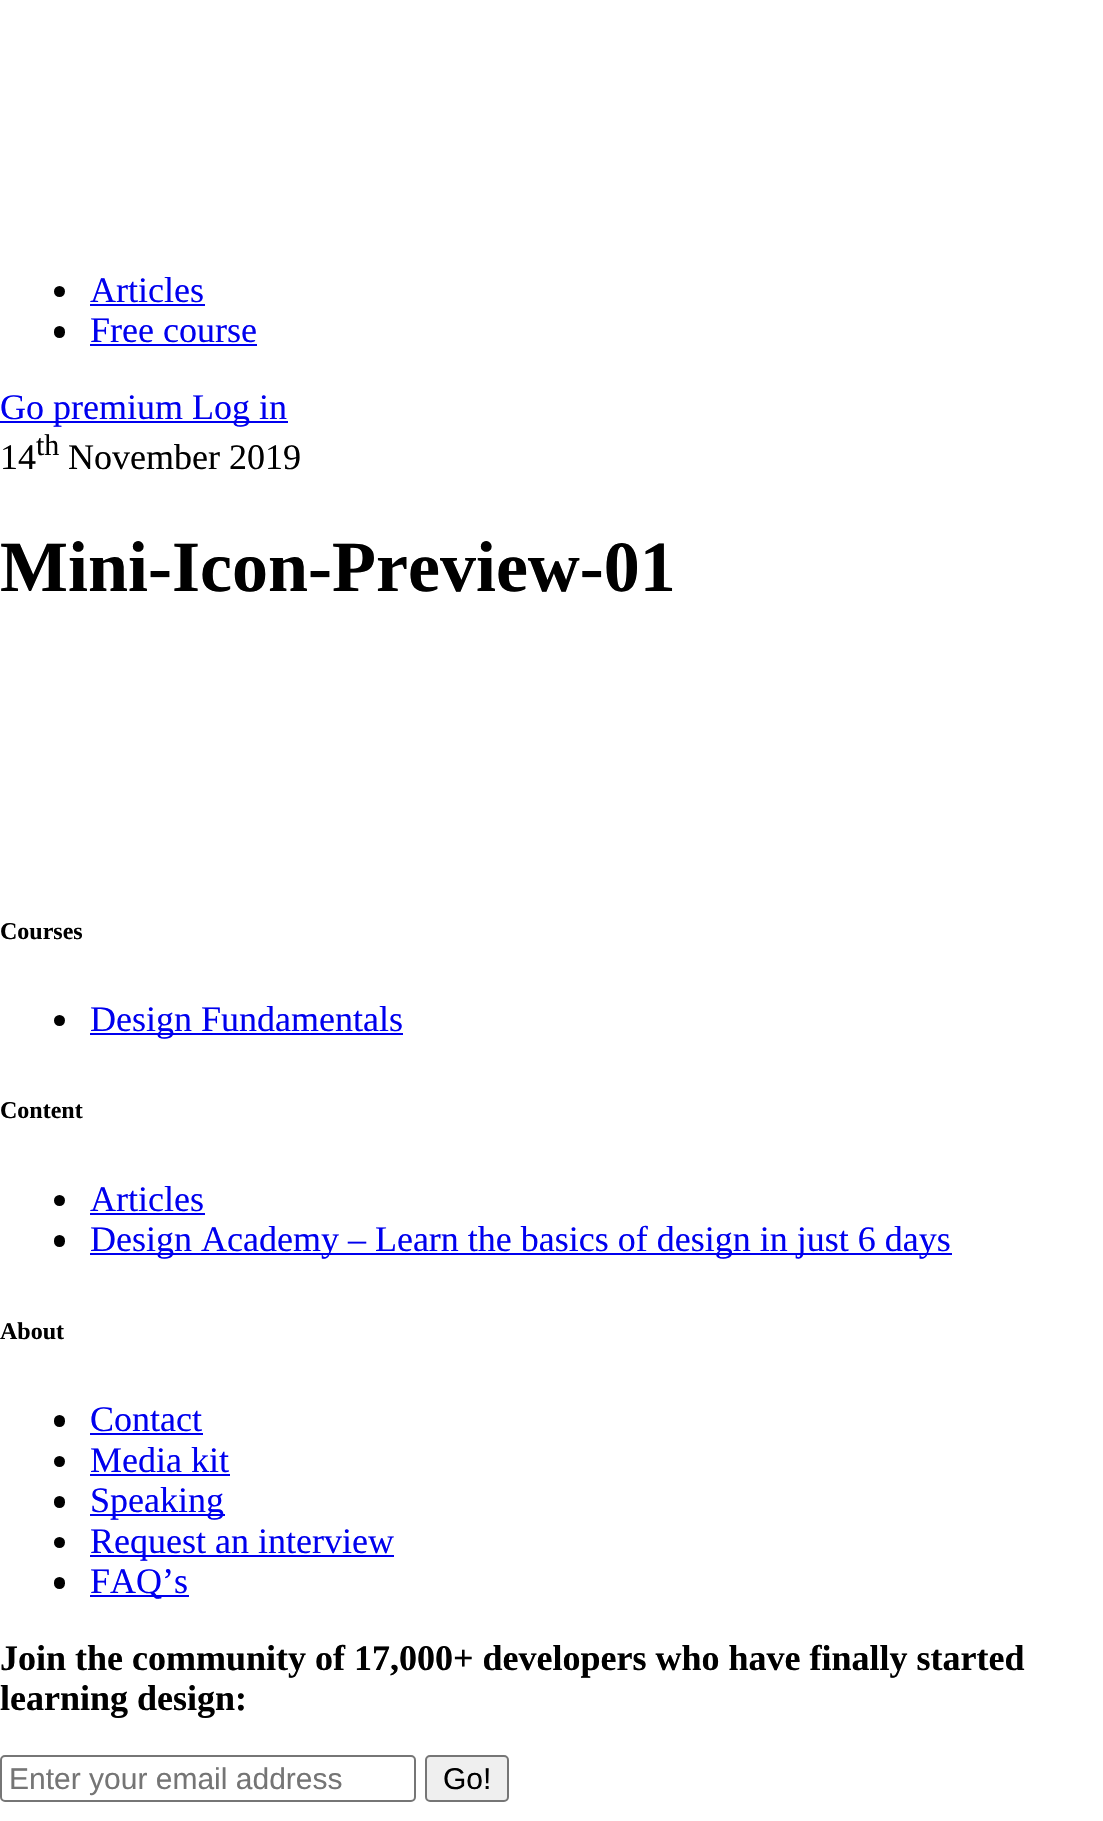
void draw(SkCanvas* c) {
SkPaint p;
p.setAntiAlias(true);
auto F=[&](const char* family, int weight, float size, bool italic = false){SkFontStyle style(weight, SkFontStyle::kNormal_Width,italic ? SkFontStyle::kItalic_Slant : SkFontStyle::kUpright_Slant);SkFont result(fontMgr->matchFamilyStyle(family, style), size);result.setSubpixel(true);return result;};
auto T=[&](const char* s, float x, float y, const SkFont& font){c->drawString(s, x, y, font, p);};
auto R=[&](float x, float y, float w, float h){c->drawRect(SkRect::MakeXYWH(x, y, w, h), p);};
auto Q=[&](float x, float y, float w, float h, float radius){c->drawRoundRect(SkRect::MakeXYWH(x, y, w, h), radius, radius, p);};
c->clear(0xffffffff);
p.setColor(0xff000000);
c->drawCircle(59.5,291.5,5.5,p);
auto f1 = F("Liberation Serif",400,36);
p.setColor(0xff0000ee);
T("Articles",90,302,f1);
R(90,304,115,2);
p.setColor(0xff000000);
Q(54,326,11,12,5.5);
p.setColor(0xff0000ee);
T("Free course",90,342,f1);
R(90,344,167,2);
R(0,421,288,2);
T("Go premium Log in",0,419,f1);
p.setColor(0xff000000);
T("14",0,469,f1);
auto f2 = F("Liberation Serif",400,30);
T("th",36,455,f2);
T("November 2019",68,469,f1);
auto f3 = F("Liberation Serif",700,72);
T("Mini-Icon-Preview-01",0,591,f3);
auto f4 = F("Liberation Serif",700,24);
T("Courses",0,939,f4);
c->drawCircle(59.5,1020.5,5.5,p);
p.setColor(0xff0000ee);
R(90,1033,313,2);
T("Design Fundamentals",90,1031,f1);
p.setColor(0xff000000);
T("Content",0,1118,f4);
c->drawCircle(59.5,1200.5,5.5,p);
p.setColor(0xff0000ee);
T("Articles",90,1211,f1);
R(90,1213,115,2);
p.setColor(0xff000000);
Q(54,1235,11,12,5.5);
p.setColor(0xff0000ee);
R(90,1253,862,2);
T("Design Academy – Learn the basics of design in just 6 days",90,1251,f1);
p.setColor(0xff000000);
T("About",0,1339,f4);
Q(54,1415,11,12,5.5);
p.setColor(0xff0000ee);
T("Contact",90,1431,f1);
R(90,1433,113,2);
p.setColor(0xff000000);
c->drawCircle(59.5,1461.5,5.5,p);
p.setColor(0xff0000ee);
T("Media kit",90,1472,f1);
R(90,1474,140,2);
p.setColor(0xff000000);
Q(54,1496,11,12,5.5);
p.setColor(0xff0000ee);
R(90,1514,135,2);
T("Speaking",90,1512,f1);
p.setColor(0xff000000);
c->drawCircle(59.5,1542.5,5.5,p);
p.setColor(0xff0000ee);
R(90,1555,304,2);
T("Request an interview",90,1553,f1);
p.setColor(0xff000000);
Q(54,1577,11,12,5.5);
p.setColor(0xff0000ee);
R(90,1595,99,2);
T("FAQ’s",90,1593,f1);
auto f5 = F("Liberation Serif",700,36);
p.setColor(0xff000000);
T("Join the community of 17,000+ developers who have finally started",0,1670,f5);
T("learning design:",0,1710,f5);
p.setStroke(true);
p.setStrokeWidth(2);
p.setColor(0xff767676);
c->drawRoundRect(SkRect::MakeXYWH(1,1756,414,45),4,4,p);
auto f6 = F("Liberation Sans",400,30);
p.setStroke(false);
p.setColor(0xff757575);
T("Enter your email address",9,1789,f6);
p.setColor(0xffefefef);
c->drawRoundRect(SkRect::MakeXYWH(426,1756,82,45),4,4,p);
p.setStroke(true);
p.setColor(0xff767676);
c->drawRoundRect(SkRect::MakeXYWH(426,1756,82,45),4,4,p);
p.setStroke(false);
p.setColor(0xff000000);
T("Go!",443,1789,f6);
}
